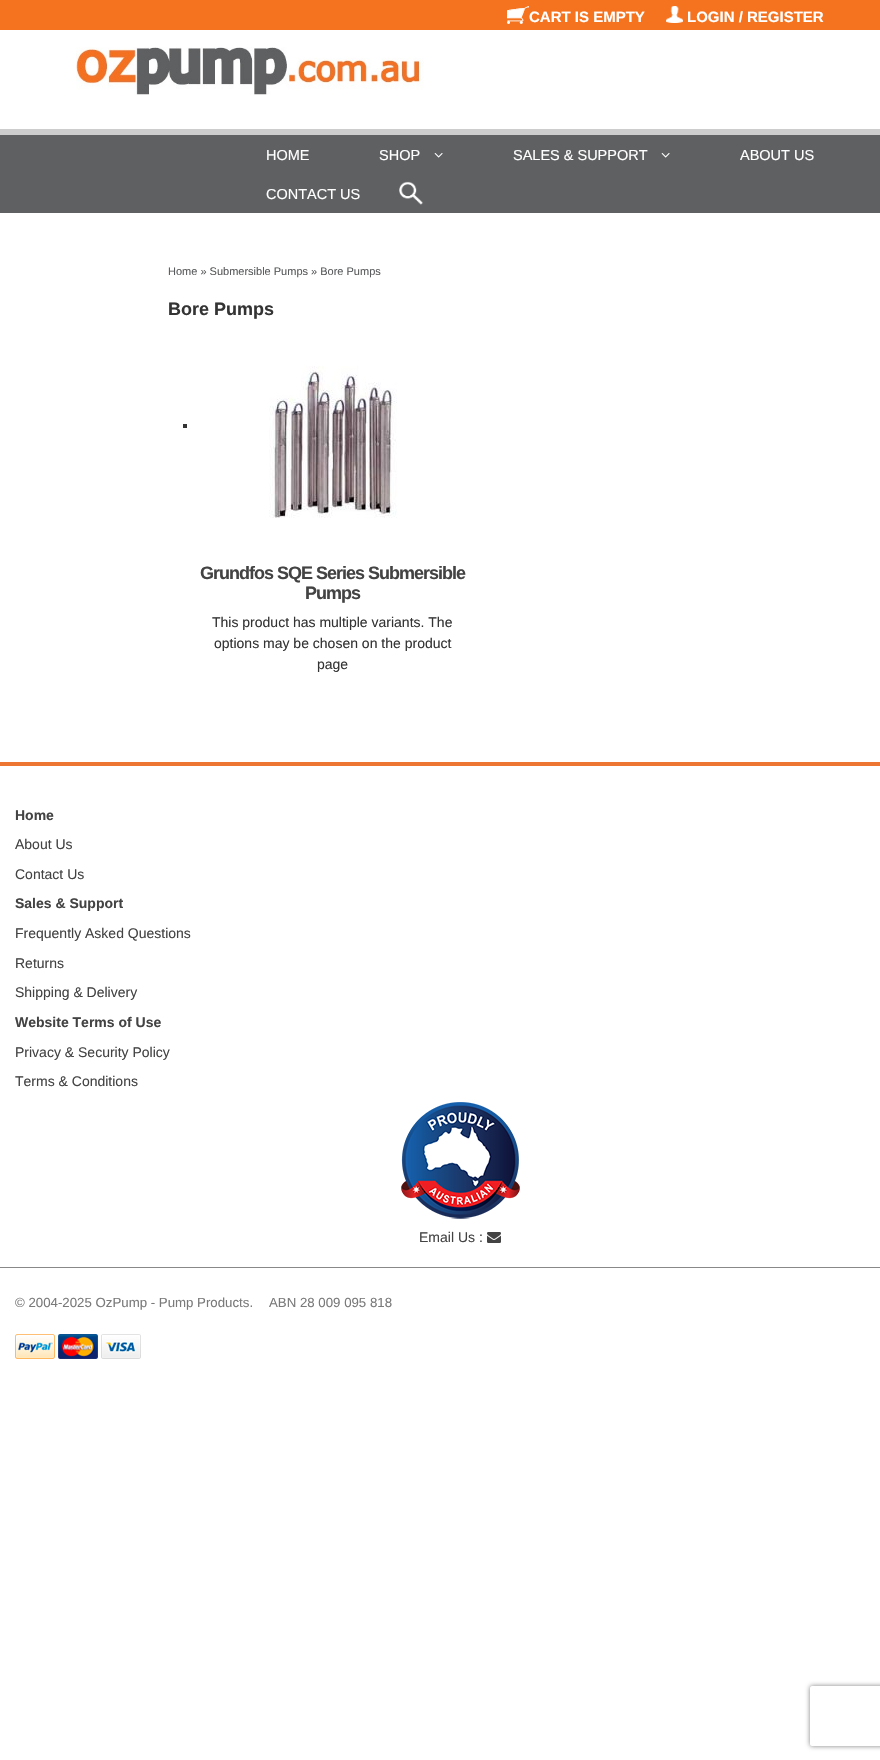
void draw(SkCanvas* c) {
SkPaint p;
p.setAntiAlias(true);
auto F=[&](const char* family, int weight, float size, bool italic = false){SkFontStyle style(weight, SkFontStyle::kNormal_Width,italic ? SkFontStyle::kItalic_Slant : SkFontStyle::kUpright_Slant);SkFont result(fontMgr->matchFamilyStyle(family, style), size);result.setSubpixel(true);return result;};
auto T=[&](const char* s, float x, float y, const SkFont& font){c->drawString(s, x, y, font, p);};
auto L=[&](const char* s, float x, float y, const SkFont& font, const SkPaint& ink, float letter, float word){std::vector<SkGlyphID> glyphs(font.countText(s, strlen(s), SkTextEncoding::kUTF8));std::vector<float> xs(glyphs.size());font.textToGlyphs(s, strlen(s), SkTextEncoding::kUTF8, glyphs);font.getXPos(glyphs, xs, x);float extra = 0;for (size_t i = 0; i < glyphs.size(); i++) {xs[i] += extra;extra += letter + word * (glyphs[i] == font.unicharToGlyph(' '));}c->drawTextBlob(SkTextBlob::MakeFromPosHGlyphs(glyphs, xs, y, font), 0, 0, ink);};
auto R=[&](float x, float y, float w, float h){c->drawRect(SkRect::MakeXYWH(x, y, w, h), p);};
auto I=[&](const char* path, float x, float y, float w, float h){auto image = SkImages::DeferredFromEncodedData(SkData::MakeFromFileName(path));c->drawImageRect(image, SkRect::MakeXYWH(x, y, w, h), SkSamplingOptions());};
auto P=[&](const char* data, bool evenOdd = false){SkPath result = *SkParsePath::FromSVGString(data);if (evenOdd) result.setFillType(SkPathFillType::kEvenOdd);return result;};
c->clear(0xffffffff);
p.setColor(0xfff5731f);
R(0,0,880,30);
I("1.png",507,6,22,18);
auto f1 = F("Liberation Sans",700,15);
p.setColor(0xffffffff);
T("CART IS EMPTY",529,22,f1);
I("2.png",666,6,17,17);
T("LOGIN / REGISTER",687,22,f1);
I("3.png",76,47,348,48);
p.setColor(0xffcecdcd);
R(0,129,880,6);
p.setColor(0xff5f6062);
R(0,135,880,78);
auto f2 = F("Liberation Sans",400,14.5);
p.setColor(0xffffffff);
T("HOME",266,160,f2);
T("SHOP",379,160,f2);
I("4.png",434,153,9,5);
T("SALES & SUPPORT",513,160,f2);
I("4.png",661,153,9,5);
T("ABOUT US",740,160,f2);
T("CONTACT US",266,199,f2);
I("5.png",399,181,24,24);
auto f3 = F("Liberation Sans",400,11);
p.setColor(0xff5a5b5d);
T("Home » Submersible Pumps » Bore Pumps",168,275,f3);
auto f4 = F("Liberation Sans",700,18);
p.setColor(0xff343434);
T("Bore Pumps",168,315,f4);
p.setColor(0xff333333);
R(183,424,4,4);
I("6.png",269,366,128,152);
p.setColor(0xff434343);
L("Grundfos SQE Series Submersible",200,579,f4,p,-1,0);
L("Pumps",305,599,f4,p,-1,0);
auto f5 = F("Liberation Sans",400,14);
p.setColor(0xff343434);
T("This product has multiple variants. The",212,627,f5);
T("options may be chosen on the product",214,648,f5);
T("page",317,669,f5);
p.setColor(0xffed7632);
R(0,762,880,4);
p.setColor(0xff888888);
R(0,1267,880,1);
auto f6 = F("Liberation Sans",700,14);
p.setColor(0xff434343);
T("Home",15,820,f6);
T("About Us",15,849,f5);
T("Contact Us",15,879,f5);
T("Sales & Support",15,908,f6);
T("Frequently Asked Questions",15,938,f5);
T("Returns",15,968,f5);
T("Shipping & Delivery",15,997,f5);
T("Website Terms of Use",15,1027,f6);
T("Privacy & Security Policy",15,1057,f5);
T("Terms & Conditions",15,1086,f5);
I("7.png",401,1102,119,117);
T("Email Us :",419,1242,f5);
I("8.png",487,1232,14,11);
auto f7 = F("Liberation Sans",400,13.25);
p.setColor(0xff7a7a7a);
T("© 2004-2025 OzPump - Pump Products.",15,1307,f7);
T("ABN 28 009 095 818",269,1307,f7);
I("9.png",15,1334,40,25);
I("10.png",58,1334,40,25);
I("11.png",101,1334,40,25);
c->save();
c->clipPath(P("M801 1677h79v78h-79zm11 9h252c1 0 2 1 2 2v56c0 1-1 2-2 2h-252c-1 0-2-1-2-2v-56c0-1 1-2 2-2z",true),true);
p.setColor(0xff808080);
p.setMaskFilter(SkMaskFilter::MakeBlur(kNormal_SkBlurStyle, 2.5));
c->drawRoundRect(SkRect::MakeXYWH(810,1686,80,60),2,2,p);
p.setMaskFilter(nullptr);
c->restore();
}
